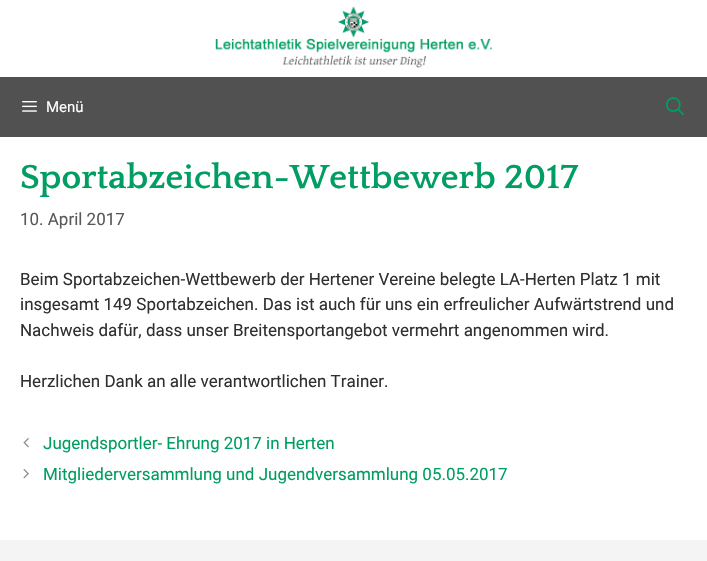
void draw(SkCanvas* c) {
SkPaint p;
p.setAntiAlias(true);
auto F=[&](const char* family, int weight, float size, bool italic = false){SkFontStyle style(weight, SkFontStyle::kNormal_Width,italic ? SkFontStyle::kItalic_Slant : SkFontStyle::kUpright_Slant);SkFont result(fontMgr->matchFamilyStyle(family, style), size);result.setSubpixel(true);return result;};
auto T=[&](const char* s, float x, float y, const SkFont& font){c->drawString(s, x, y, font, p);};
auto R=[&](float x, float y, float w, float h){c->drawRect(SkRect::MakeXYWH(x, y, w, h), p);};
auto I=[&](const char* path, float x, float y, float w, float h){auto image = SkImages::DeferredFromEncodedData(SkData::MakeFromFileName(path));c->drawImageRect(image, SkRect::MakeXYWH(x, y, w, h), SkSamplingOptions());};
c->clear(0xffffffff);
I("1.png",215,6,278,62);
p.setColor(0xff515151);
R(0,77,707,60);
I("2.png",22,101,15,11);
auto f1 = F("Roboto",400,15);
p.setColor(0xffffffff);
T("Menü",46,112,f1);
I("3.png",666,97,18,19);
auto f2 = F("Quattrocento",700,35);
p.setColor(0xff009e62);
T("Sportabzeichen-Wettbewerb 2017",20,188,f2);
auto f3 = F("Roboto",400,17);
p.setColor(0xff595959);
T("10. April 2017",20,225,f3);
p.setColor(0xff303030);
T("Beim Sportabzeichen-Wettbewerb der Hertener Vereine belegte LA-Herten Platz 1 mit",20,285,f3);
T("insgesamt 149 Sportabzeichen. Das ist auch für uns ein erfreulicher Aufwärtstrend und",20,310,f3);
T("Nachweis dafür, dass unser Breitensportangebot vermehrt angenommen wird.",20,336,f3);
T("Herzlichen Dank an alle verantwortlichen Trainer.",20,387,f3);
I("4.png",23,438,6,10);
p.setColor(0xff009e62);
T("Jugendsportler- Ehrung 2017 in Herten",43,449,f3);
I("5.png",23,469,6,10);
T("Mitgliederversammlung und Jugendversammlung 05.05.2017",43,480,f3);
p.setColor(0xfff5f4f4);
R(0,540,707,21);
}
